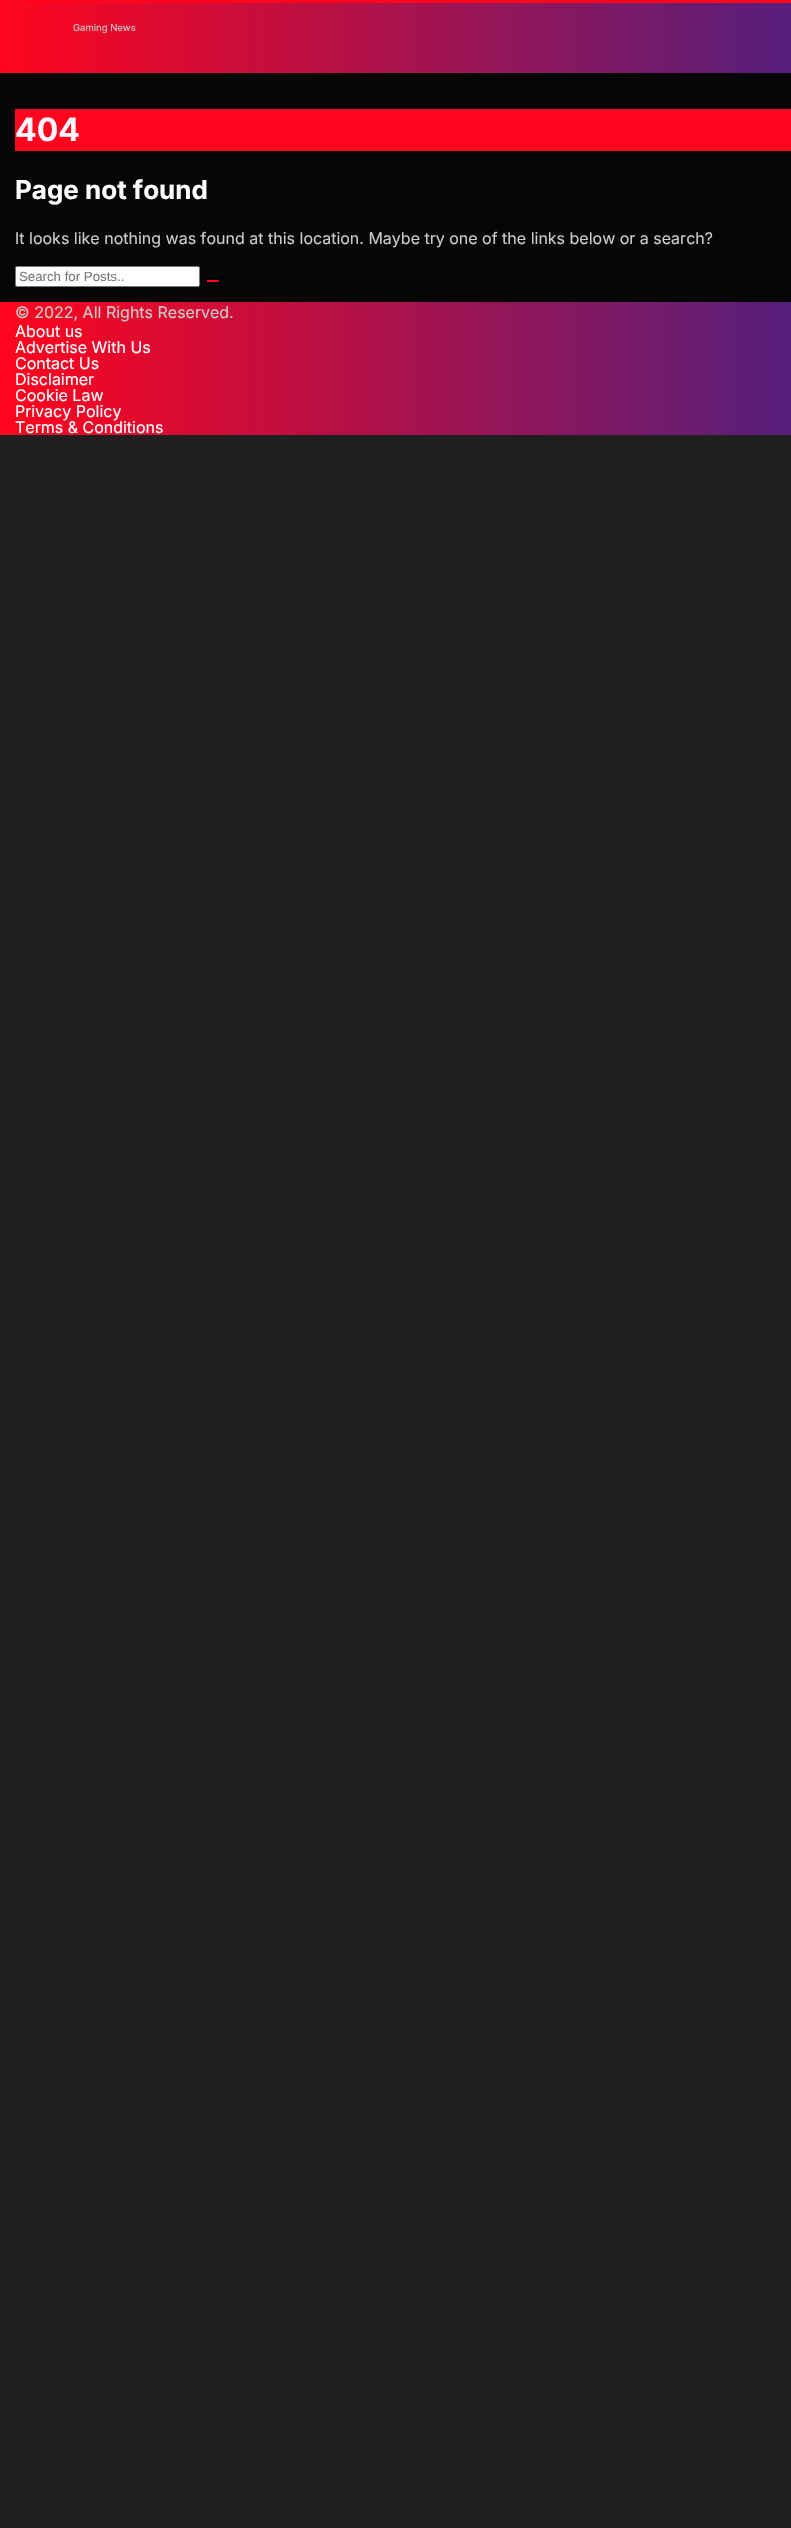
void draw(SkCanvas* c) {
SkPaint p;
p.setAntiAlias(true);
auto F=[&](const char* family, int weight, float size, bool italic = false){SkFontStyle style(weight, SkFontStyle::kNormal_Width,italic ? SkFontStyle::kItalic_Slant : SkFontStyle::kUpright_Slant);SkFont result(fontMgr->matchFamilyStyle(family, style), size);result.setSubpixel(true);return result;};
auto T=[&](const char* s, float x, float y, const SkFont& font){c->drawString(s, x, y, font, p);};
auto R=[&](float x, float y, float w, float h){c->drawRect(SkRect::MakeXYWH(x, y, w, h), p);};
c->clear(0xff1f1f1f);
p.setColor(0xff060606);
R(0,73,791,229);
p.setColor(0xffff051d);
R(0,0,791,3);
{
const SkColor colors[] = {0xffff051d,0xff4f207f};
const float stops[] = {0,1};
const SkPoint ends[] = {{0,38}, {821,38}};
p.setShader(SkGradientShader::MakeLinear(ends, colors, stops, 2, SkTileMode::kClamp));
p.setAlpha(255);
}
R(0,3,791,70);
auto f1 = F("Inter",400,9.5);
p.setShader(nullptr);
p.setColor(0xffcccccc);
T("Gaming News",73,31,f1);
p.setColor(0xffff051d);
R(15,109,776,42);
auto f2 = F("Inter",700,32);
p.setColor(0xfffff5ff);
T("404",15,141,f2);
auto f3 = F("Inter",700,26);
p.setColor(0xffffffff);
T("Page not found",15,199,f3);
auto f4 = F("Inter",400,16);
p.setColor(0xffcccccc);
T("It looks like nothing was found at this location. Maybe try one of the links below or a search?",15,244,f4);
p.setColor(0xffffffff);
c->drawRoundRect(SkRect::MakeXYWH(15.5,266.5,184,20),1.5,1.5,p);
p.setStroke(true);
p.setStrokeWidth(1);
p.setColor(0xff767676);
c->drawRoundRect(SkRect::MakeXYWH(15.5,266.5,184,20),1.5,1.5,p);
auto f5 = F("Liberation Sans",400,13.25);
p.setStroke(false);
p.setColor(0xff757575);
T("Search for Posts..",19,281,f5);
p.setColor(0xffff051d);
c->drawRect(SkRect::MakeXYWH(206,279,14,4),p);
p.setStroke(true);
p.setStrokeWidth(2);
p.setColor(0xff000000);
c->drawRect(SkRect::MakeXYWH(206,279,14,4),p);
p.setStroke(false);
{
const SkColor colors[] = {0xffff051d,0xff4f207f};
const float stops[] = {0,1};
const SkPoint ends[] = {{0,369}, {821,369}};
p.setShader(SkGradientShader::MakeLinear(ends, colors, stops, 2, SkTileMode::kClamp));
p.setAlpha(255);
}
R(0,302,791,133);
p.setShader(nullptr);
p.setColor(0xffcccccc);
T("© 2022, All Rights Reserved.",15,318,f4);
p.setColor(0xffffffff);
T("About us",15,337,f4);
T("Advertise With Us",15,353,f4);
T("Contact Us",15,369,f4);
T("Disclaimer",15,385,f4);
T("Cookie Law",15,401,f4);
T("Privacy Policy",15,417,f4);
T("Terms & Conditions",15,433,f4);
}
